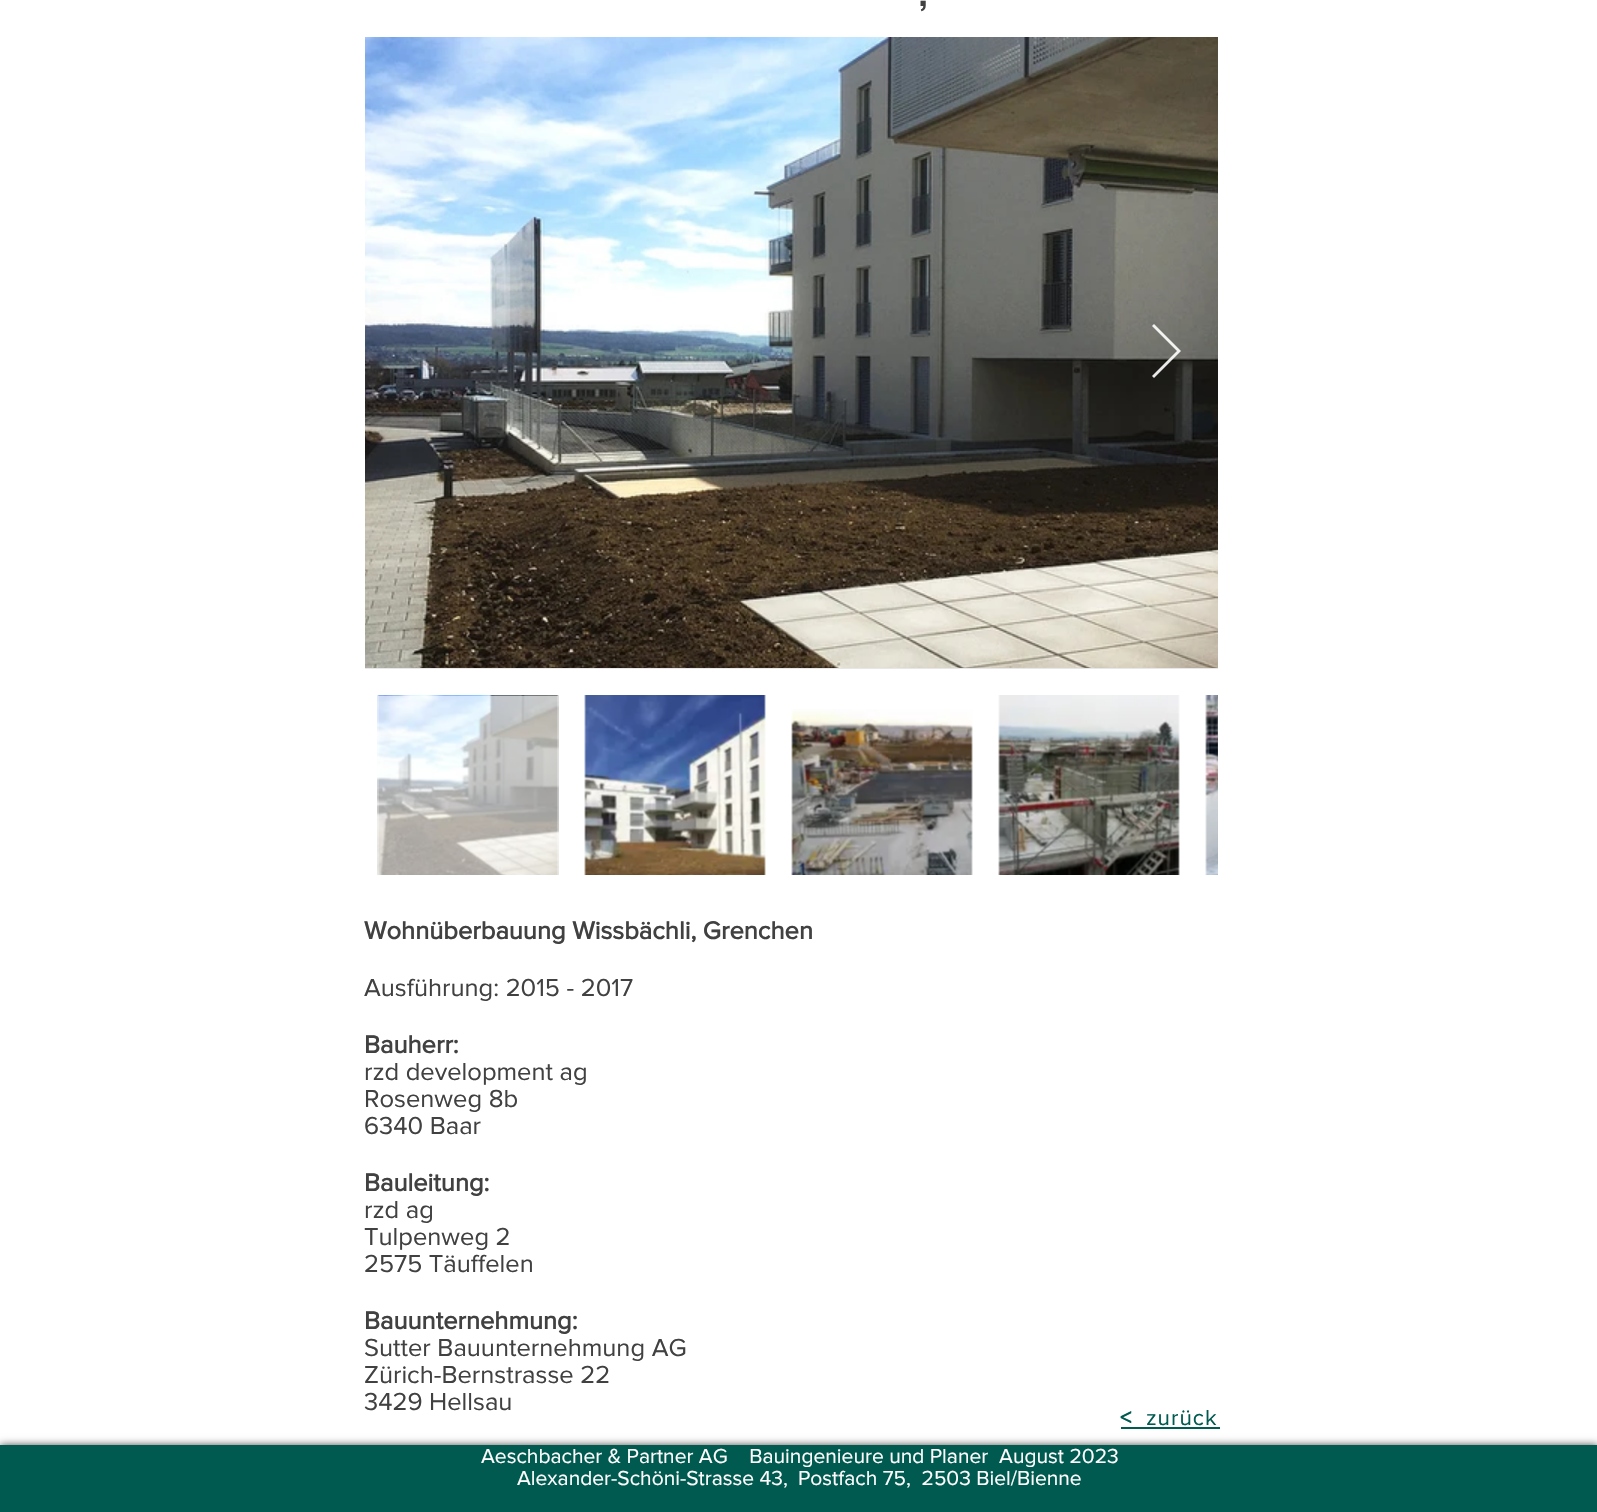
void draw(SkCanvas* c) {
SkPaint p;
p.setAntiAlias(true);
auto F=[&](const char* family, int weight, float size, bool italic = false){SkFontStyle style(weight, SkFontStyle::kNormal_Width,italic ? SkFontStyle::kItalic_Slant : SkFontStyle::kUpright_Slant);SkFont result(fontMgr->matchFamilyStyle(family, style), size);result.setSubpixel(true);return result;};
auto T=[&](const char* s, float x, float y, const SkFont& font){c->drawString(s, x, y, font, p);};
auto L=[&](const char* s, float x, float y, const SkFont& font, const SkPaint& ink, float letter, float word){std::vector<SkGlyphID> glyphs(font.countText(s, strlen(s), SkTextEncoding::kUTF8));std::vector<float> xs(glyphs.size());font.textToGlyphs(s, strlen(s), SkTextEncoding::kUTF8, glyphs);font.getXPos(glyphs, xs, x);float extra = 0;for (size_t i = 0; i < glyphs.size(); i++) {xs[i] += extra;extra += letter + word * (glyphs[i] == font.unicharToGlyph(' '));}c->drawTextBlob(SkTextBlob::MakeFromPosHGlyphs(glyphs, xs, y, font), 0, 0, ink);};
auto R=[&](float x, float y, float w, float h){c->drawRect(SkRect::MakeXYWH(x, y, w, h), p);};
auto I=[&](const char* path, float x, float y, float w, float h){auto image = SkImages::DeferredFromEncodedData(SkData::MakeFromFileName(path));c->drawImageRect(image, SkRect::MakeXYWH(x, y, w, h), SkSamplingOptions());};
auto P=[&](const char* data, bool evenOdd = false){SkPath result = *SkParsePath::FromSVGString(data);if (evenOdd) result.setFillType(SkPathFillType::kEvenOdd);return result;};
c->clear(0xffffffff);
auto f1 = F("Oswald",500,38);
p.setColor(0xff414141);
T(",",919,6,f1);
p.setColor(0xffe8e6e6);
R(365,668,853,1);
I("1.png",365,37,853,631);
p.setColor(0xe6ffffff);
c->drawPath(P("M1152 326l2-2l27 27l-27 27l-2-2l25-25z"),p);
I("2.png",377,695,182,180);
I("3.png",584,695,182,180);
I("4.png",791,709,182,166);
I("5.png",998,695,182,180);
I("6.png",1205,695,13,180);
auto f2 = F("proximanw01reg",700,25.5);
p.setColor(0xff414141);
T("Wohnüberbauung Wissbächli, Grenchen",364,939,f2);
auto f3 = F("proximanw01reg",400,25.5);
T("Ausführung: 2015 - 2017",364,996,f3);
T("Bauherr:",364,1053,f2);
T("rzd development ag",364,1080,f3);
T("Rosenweg 8b",364,1107,f3);
T("6340 Baar",364,1134,f3);
T("Bauleitung:",364,1191,f2);
T("rzd ag",364,1218,f3);
T("Tulpenweg 2",364,1245,f3);
T("2575 Täuffelen",364,1272,f3);
T("Bauunternehmung:",364,1329,f2);
T("Sutter Bauunternehmung AG",364,1356,f3);
T("Zürich-Bernstrasse 22",364,1383,f3);
T("3429 Hellsau",364,1410,f3);
auto f4 = F("proximanw01reg",700,22.5);
p.setColor(0xff005a50);
L("<",1120,1425,f4,p,1,0);
auto f5 = F("proximanw01reg",400,22.5);
L("zurück",1146,1425,f5,p,1,0);
R(1121,1427,99,2);
p.setColor(0xb3000000);
p.setMaskFilter(SkMaskFilter::MakeBlur(kNormal_SkBlurStyle, 4));
c->drawRect(SkRect::MakeXYWH(0,1445,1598,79),p);
p.setMaskFilter(nullptr);
p.setColor(0xff005a50);
R(0,1445,1597,67);
auto f6 = F("proximanw01reg",400,21);
p.setColor(0xffffffff);
T("Aeschbacher & Partner AG    Bauingenieure und Planer  August 2023",481,1463,f6);
T("Alexander-Schöni-Strasse 43,",517,1485,f6);
T("Postfach 75,  2503 Biel/Bienne",798,1485,f6);
}
